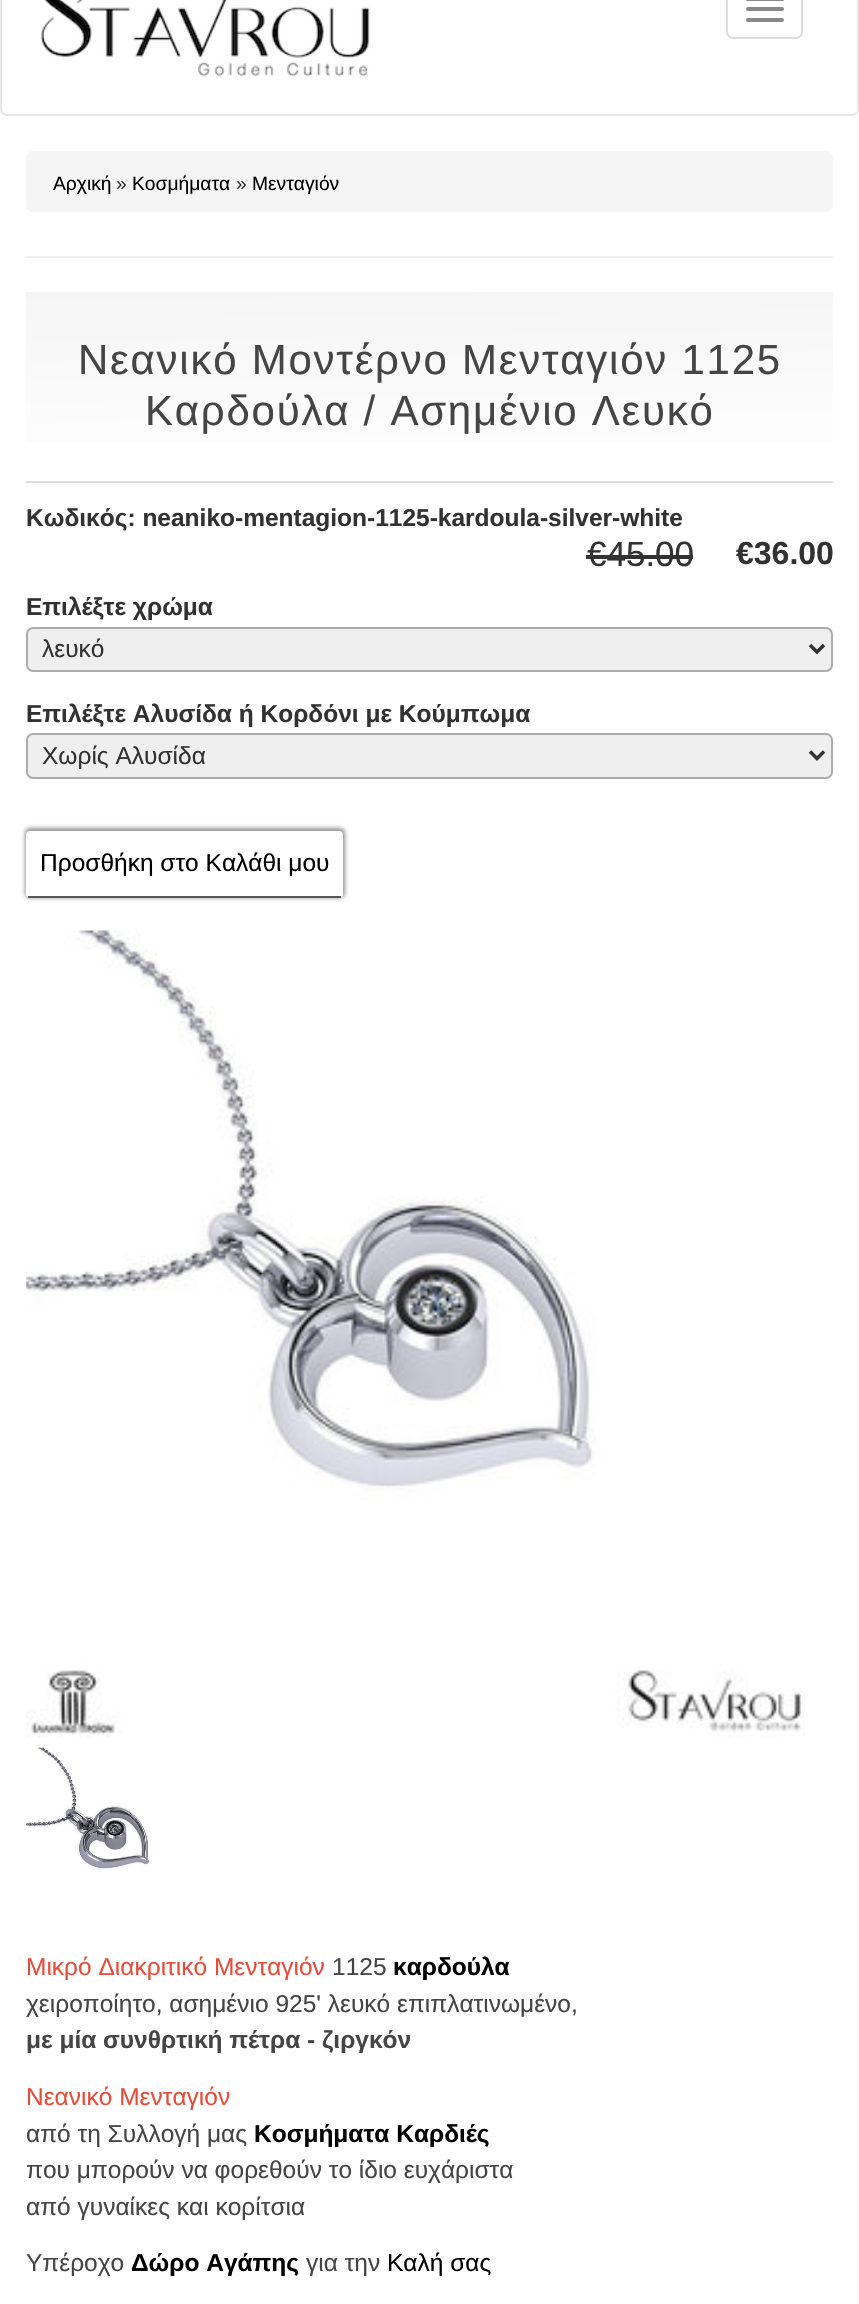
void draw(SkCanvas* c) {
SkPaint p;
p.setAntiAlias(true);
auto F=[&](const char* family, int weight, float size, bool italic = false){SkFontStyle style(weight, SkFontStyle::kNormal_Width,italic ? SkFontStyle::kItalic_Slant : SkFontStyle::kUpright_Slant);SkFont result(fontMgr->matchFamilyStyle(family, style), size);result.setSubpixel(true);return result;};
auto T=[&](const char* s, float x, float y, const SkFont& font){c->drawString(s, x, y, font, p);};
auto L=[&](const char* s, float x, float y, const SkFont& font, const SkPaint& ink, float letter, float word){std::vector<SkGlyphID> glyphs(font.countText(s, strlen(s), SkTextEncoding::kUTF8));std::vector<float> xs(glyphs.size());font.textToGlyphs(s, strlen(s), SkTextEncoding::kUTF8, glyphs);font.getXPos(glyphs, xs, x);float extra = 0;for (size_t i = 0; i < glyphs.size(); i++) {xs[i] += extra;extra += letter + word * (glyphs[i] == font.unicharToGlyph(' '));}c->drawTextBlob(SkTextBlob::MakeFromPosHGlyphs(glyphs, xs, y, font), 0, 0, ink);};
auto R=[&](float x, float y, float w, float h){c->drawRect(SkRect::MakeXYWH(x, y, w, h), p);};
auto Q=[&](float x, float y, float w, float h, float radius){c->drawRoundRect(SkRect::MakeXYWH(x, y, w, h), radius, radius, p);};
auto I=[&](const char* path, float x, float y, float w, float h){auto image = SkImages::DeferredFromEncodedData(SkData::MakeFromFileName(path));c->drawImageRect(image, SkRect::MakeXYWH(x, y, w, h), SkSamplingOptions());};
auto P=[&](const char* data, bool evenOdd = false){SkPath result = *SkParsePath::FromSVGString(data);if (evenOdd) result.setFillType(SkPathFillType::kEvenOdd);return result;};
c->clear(0xffffffff);
p.setStroke(true);
p.setStrokeWidth(2);
p.setColor(0xffe7e7e7);
c->drawRoundRect(SkRect::MakeXYWH(1,-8,857,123),6,6,p);
I("1.png",41,0,329,77);
p.setColor(0xffdddddd);
c->drawRoundRect(SkRect::MakeXYWH(727,-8,75,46),6,6,p);
p.setStroke(false);
p.setColor(0xff888888);
Q(746,-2,38,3,2);
Q(746,7,38,4,2);
Q(746,18,38,4,2);
p.setColor(0xffeeeeee);
R(26,256,807,2);
p.setColor(0xfff5f5f5);
Q(26,151,807,61,7);
auto f1 = F("Liberation Sans",400,19.25);
p.setColor(0xff000000);
T("Αρχική",53,190,f1);
p.setColor(0xff323232);
T("»",116,190,f1);
p.setColor(0xff000000);
T("Κοσμήματα",132,190,f1);
p.setColor(0xff323232);
T("»",236,190,f1);
p.setColor(0xff000000);
T("Μενταγιόν",252,190,f1);
{
const SkColor colors[] = {0xfff5f5f5,0xffffffff};
const float stops[] = {0,1};
const SkPoint ends[] = {{428,285}, {431,488}};
p.setShader(SkGradientShader::MakeLinear(ends, colors, stops, 2, SkTileMode::kClamp));
p.setAlpha(255);
}
R(26,292,807,151);
p.setShader(nullptr);
p.setColor(0xffdddddd);
R(26,481,807,2);
auto f2 = F("Liberation Sans",400,42);
p.setColor(0xff454545);
L("Νεανικό Μοντέρνο Μενταγιόν 1125",78,374,f2,p,1.75,0);
L("Καρδούλα / Ασημένιο Λευκό",145,425,f2,p,1.75,0);
auto f3 = F("Liberation Sans",700,24.5);
p.setColor(0xff323232);
T("Κωδικός: neaniko-mentagion-1125-kardoula-silver-white",26,526,f3);
auto f4 = F("Liberation Sans",400,35);
T("€45.00",587,566,f4);
R(586,555,107,4);
auto f5 = F("Liberation Sans",700,32);
T("€36.00",736,564,f5);
T("Επιλέξτε χρώμα",26,615,f3);
p.setColor(0xffefefef);
c->drawRoundRect(SkRect::MakeXYWH(27,628,805,43),6,6,p);
p.setStroke(true);
p.setColor(0xffacacac);
c->drawRoundRect(SkRect::MakeXYWH(27,628,805,43),6,6,p);
p.setStrokeWidth(3.5);
p.setColor(0xff323232);
c->drawPath(P("M810 645l7 7l7-7"),p);
auto f6 = F("Liberation Sans",400,24.5);
p.setStroke(false);
T("λευκό",42,657,f6);
T("Επιλέξτε Αλυσίδα ή Κορδόνι με Κούμπωμα",26,722,f3);
p.setColor(0xffefefef);
c->drawRoundRect(SkRect::MakeXYWH(27,734,805,44),6,6,p);
p.setStroke(true);
p.setStrokeWidth(2);
p.setColor(0xffacacac);
c->drawRoundRect(SkRect::MakeXYWH(27,734,805,44),6,6,p);
p.setStrokeWidth(3.5);
p.setColor(0xff323232);
c->drawPath(P("M810 751.5l7 7l7-7"),p);
p.setStroke(false);
T("Χωρίς Αλυσίδα",42,764,f6);
p.setColor(0xff939393);
p.setMaskFilter(SkMaskFilter::MakeBlur(kNormal_SkBlurStyle, 2));
c->drawRoundRect(SkRect::MakeXYWH(25,828,320,70),5,5,p);
p.setMaskFilter(nullptr);
p.setColor(0xffffffff);
Q(26,831,317,67,4);
p.setColor(0xff575757);
R(28,896,313,2);
p.setColor(0xff000000);
T("Προσθήκη στο Καλάθι μου",40,871,f6);
I("2.png",26,930,779,808);
I("3.png",26,1747,124,124);
p.setColor(0xffe74c3c);
T("Μικρό Διακριτικό Μενταγιόν",26,1975,f6);
p.setColor(0xff454545);
T("1125",332,1975,f6);
p.setColor(0xff000000);
T("καρδούλα",393,1975,f3);
p.setColor(0xff454545);
T("χειροποίητο, ασημένιο 925' λευκό επιπλατινωμένο,",26,2012,f6);
T("με μία συνθρτική πέτρα - ζιργκόν",26,2048,f3);
p.setColor(0xffe74c3c);
T("Νεανικό Μενταγιόν",26,2105,f6);
p.setColor(0xff454545);
T("από τη Συλλογή μας",26,2142,f6);
p.setColor(0xff000000);
T("Κοσμήματα Καρδιές",254,2142,f3);
p.setColor(0xff454545);
T("που μπορούν να φορεθούν το ίδιο ευχάριστα",26,2178,f6);
T("από γυναίκες και κορίτσια",26,2215,f6);
T("Υπέροχο",26,2271,f6);
p.setColor(0xff000000);
T("Δώρο Αγάπης",131,2271,f3);
p.setColor(0xff454545);
T("για την",306,2271,f6);
p.setColor(0xff000000);
T("Καλή σας",387,2271,f6);
}
